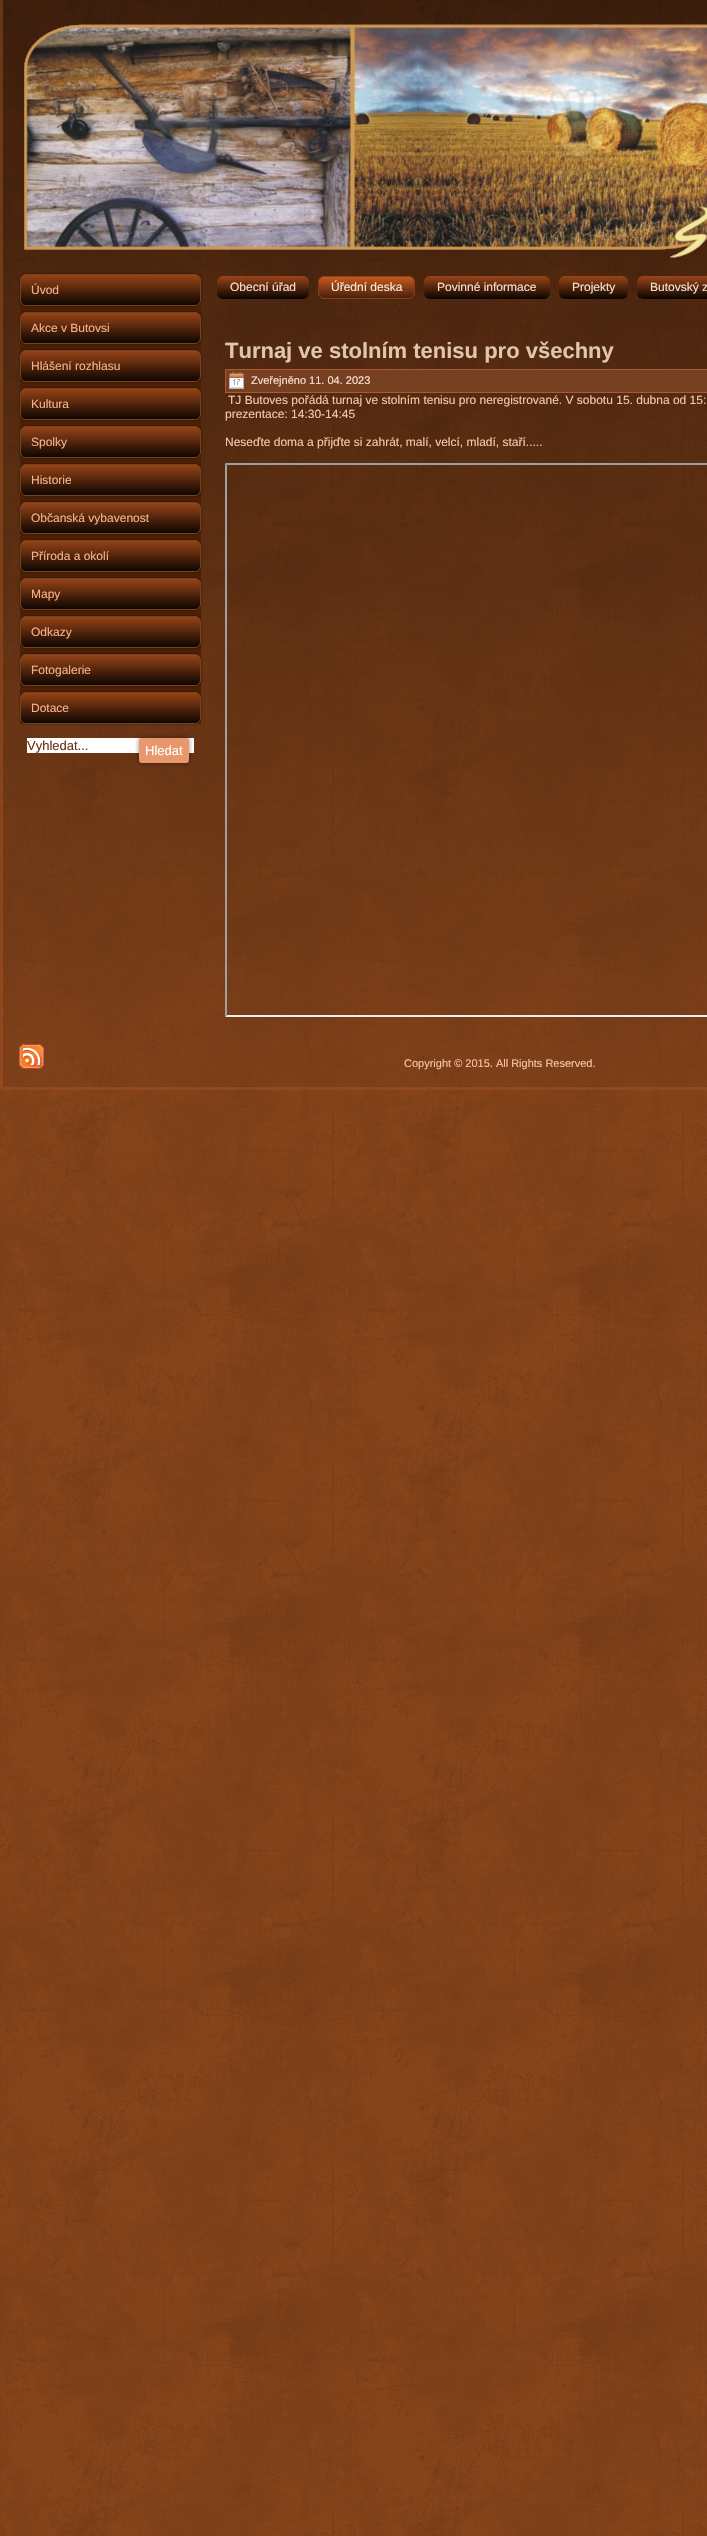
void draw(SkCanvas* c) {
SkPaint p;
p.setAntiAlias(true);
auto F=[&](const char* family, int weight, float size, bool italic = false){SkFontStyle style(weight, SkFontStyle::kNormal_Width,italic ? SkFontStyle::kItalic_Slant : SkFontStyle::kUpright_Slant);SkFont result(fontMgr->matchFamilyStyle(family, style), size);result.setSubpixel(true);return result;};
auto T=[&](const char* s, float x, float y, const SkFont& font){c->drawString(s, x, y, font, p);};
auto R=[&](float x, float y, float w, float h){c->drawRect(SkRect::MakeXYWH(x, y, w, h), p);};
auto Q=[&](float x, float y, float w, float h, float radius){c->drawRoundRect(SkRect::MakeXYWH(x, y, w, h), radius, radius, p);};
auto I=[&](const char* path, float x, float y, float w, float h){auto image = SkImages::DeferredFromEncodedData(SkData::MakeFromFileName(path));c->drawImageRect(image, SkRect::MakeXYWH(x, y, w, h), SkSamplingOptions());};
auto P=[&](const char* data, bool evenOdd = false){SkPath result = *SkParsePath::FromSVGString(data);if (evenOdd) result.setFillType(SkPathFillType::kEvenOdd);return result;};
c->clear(0xffffffff);
I("1.png",0,0,707,2536);
p.setColor(0x66733a17);
R(0,0,707,1090);
p.setColor(0x66af5823);
c->drawPath(P("M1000 1090h-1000l3-3h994z"),p);
c->drawPath(P("M0 1090v-1090h3v1087z"),p);
I("2.png",24,24,683,234);
{
const SkColor colors[] = {0xff9b4517,0xff090401};
const float stops[] = {0,1};
const SkPoint ends[] = {{263,276}, {263,299}};
p.setShader(SkGradientShader::MakeLinear(ends, colors, stops, 2, SkTileMode::kClamp));
p.setAlpha(255);
}
Q(217,276,92,23,6);
auto f1 = F("Liberation Sans",400,12);
p.setShader(nullptr);
p.setColor(0xfff3dfce);
T("Obecní úřad",230,291,f1);
p.setColor(0xff4d2004);
R(313,282,1,9);
{
const SkColor colors[] = {0xffcc5b1e,0xff431e0a};
const float stops[] = {0,1};
const SkPoint ends[] = {{367,276}, {367,299}};
p.setShader(SkGradientShader::MakeLinear(ends, colors, stops, 2, SkTileMode::kClamp));
p.setAlpha(255);
}
c->drawRoundRect(SkRect::MakeXYWH(318.5,276.5,96,22),5.5,5.5,p);
p.setStroke(true);
p.setStrokeWidth(1);
p.setShader(nullptr);
p.setColor(0xff8a3e15);
c->drawRoundRect(SkRect::MakeXYWH(318.5,276.5,96,22),5.5,5.5,p);
p.setStroke(false);
p.setColor(0xfff7eade);
T("Úřední deska",331,291,f1);
p.setColor(0xff4d2004);
R(419,282,1,9);
{
const SkColor colors[] = {0xff9b4517,0xff090401};
const float stops[] = {0,1};
const SkPoint ends[] = {{487,276}, {487,299}};
p.setShader(SkGradientShader::MakeLinear(ends, colors, stops, 2, SkTileMode::kClamp));
p.setAlpha(255);
}
Q(424,276,126,23,6);
p.setShader(nullptr);
p.setColor(0xfff3dfce);
T("Povinné informace",437,291,f1);
p.setColor(0xff4d2004);
R(554,282,1,9);
{
const SkColor colors[] = {0xff9b4517,0xff090401};
const float stops[] = {0,1};
const SkPoint ends[] = {{594,276}, {594,299}};
p.setShader(SkGradientShader::MakeLinear(ends, colors, stops, 2, SkTileMode::kClamp));
p.setAlpha(255);
}
Q(559,276,69,23,6);
p.setShader(nullptr);
p.setColor(0xfff3dfce);
T("Projekty",572,291,f1);
p.setColor(0xff4d2004);
R(632,282,1,9);
{
const SkColor colors[] = {0xff9b4517,0xff090401};
const float stops[] = {0,1};
const SkPoint ends[] = {{702,276}, {702,299}};
p.setShader(SkGradientShader::MakeLinear(ends, colors, stops, 2, SkTileMode::kClamp));
p.setAlpha(255);
}
Q(637,276,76,23,6);
p.setShader(nullptr);
p.setColor(0xfff3dfce);
T("Butovský z",650,291,f1);
p.setColor(0xff4d2004);
c->drawPath(P("M24 274h173c2 0 4 2 4 4v446h-181v-446c0-2 2-4 4-4z"),p);
p.setColor(0x33000000);
p.setMaskFilter(SkMaskFilter::MakeBlur(kNormal_SkBlurStyle, 1));
c->drawRoundRect(SkRect::MakeXYWH(19,273,183,34),7,7,p);
p.setMaskFilter(nullptr);
{
const SkColor colors[] = {0xff9b4517,0xff090401};
const float stops[] = {0,1};
const SkPoint ends[] = {{111,274}, {111,306}};
p.setShader(SkGradientShader::MakeLinear(ends, colors, stops, 2, SkTileMode::kClamp));
p.setAlpha(255);
}
c->drawRoundRect(SkRect::MakeXYWH(20.5,274.5,180,31),5.5,5.5,p);
p.setStroke(true);
p.setShader(nullptr);
p.setColor(0xff73441c);
c->drawRoundRect(SkRect::MakeXYWH(20.5,274.5,180,31),5.5,5.5,p);
p.setStroke(false);
p.setColor(0xfff8b287);
T("Úvod",31,294,f1);
p.setColor(0x33000000);
p.setMaskFilter(SkMaskFilter::MakeBlur(kNormal_SkBlurStyle, 1));
c->drawRoundRect(SkRect::MakeXYWH(19,311,183,34),7,7,p);
p.setMaskFilter(nullptr);
{
const SkColor colors[] = {0xff9b4517,0xff090401};
const float stops[] = {0,1};
const SkPoint ends[] = {{111,312}, {111,344}};
p.setShader(SkGradientShader::MakeLinear(ends, colors, stops, 2, SkTileMode::kClamp));
p.setAlpha(255);
}
c->drawRoundRect(SkRect::MakeXYWH(20.5,312.5,180,31),5.5,5.5,p);
p.setStroke(true);
p.setShader(nullptr);
p.setColor(0xff73441c);
c->drawRoundRect(SkRect::MakeXYWH(20.5,312.5,180,31),5.5,5.5,p);
p.setStroke(false);
p.setColor(0xfff8b287);
T("Akce v Butovsi",31,332,f1);
p.setColor(0x33000000);
p.setMaskFilter(SkMaskFilter::MakeBlur(kNormal_SkBlurStyle, 1));
c->drawRoundRect(SkRect::MakeXYWH(19,349,183,34),7,7,p);
p.setMaskFilter(nullptr);
{
const SkColor colors[] = {0xff9b4517,0xff090401};
const float stops[] = {0,1};
const SkPoint ends[] = {{111,350}, {111,382}};
p.setShader(SkGradientShader::MakeLinear(ends, colors, stops, 2, SkTileMode::kClamp));
p.setAlpha(255);
}
c->drawRoundRect(SkRect::MakeXYWH(20.5,350.5,180,31),5.5,5.5,p);
p.setStroke(true);
p.setShader(nullptr);
p.setColor(0xff73441c);
c->drawRoundRect(SkRect::MakeXYWH(20.5,350.5,180,31),5.5,5.5,p);
p.setStroke(false);
p.setColor(0xfff8b287);
T("Hlášení rozhlasu",31,370,f1);
p.setColor(0x33000000);
p.setMaskFilter(SkMaskFilter::MakeBlur(kNormal_SkBlurStyle, 1));
c->drawRoundRect(SkRect::MakeXYWH(19,387,183,34),7,7,p);
p.setMaskFilter(nullptr);
{
const SkColor colors[] = {0xff9b4517,0xff090401};
const float stops[] = {0,1};
const SkPoint ends[] = {{111,388}, {111,420}};
p.setShader(SkGradientShader::MakeLinear(ends, colors, stops, 2, SkTileMode::kClamp));
p.setAlpha(255);
}
c->drawRoundRect(SkRect::MakeXYWH(20.5,388.5,180,31),5.5,5.5,p);
p.setStroke(true);
p.setShader(nullptr);
p.setColor(0xff73441c);
c->drawRoundRect(SkRect::MakeXYWH(20.5,388.5,180,31),5.5,5.5,p);
p.setStroke(false);
p.setColor(0xfff8b287);
T("Kultura",31,408,f1);
p.setColor(0x33000000);
p.setMaskFilter(SkMaskFilter::MakeBlur(kNormal_SkBlurStyle, 1));
c->drawRoundRect(SkRect::MakeXYWH(19,425,183,34),7,7,p);
p.setMaskFilter(nullptr);
{
const SkColor colors[] = {0xff9b4517,0xff090401};
const float stops[] = {0,1};
const SkPoint ends[] = {{111,426}, {111,458}};
p.setShader(SkGradientShader::MakeLinear(ends, colors, stops, 2, SkTileMode::kClamp));
p.setAlpha(255);
}
c->drawRoundRect(SkRect::MakeXYWH(20.5,426.5,180,31),5.5,5.5,p);
p.setStroke(true);
p.setShader(nullptr);
p.setColor(0xff73441c);
c->drawRoundRect(SkRect::MakeXYWH(20.5,426.5,180,31),5.5,5.5,p);
p.setStroke(false);
p.setColor(0xfff8b287);
T("Spolky",31,446,f1);
p.setColor(0x33000000);
p.setMaskFilter(SkMaskFilter::MakeBlur(kNormal_SkBlurStyle, 1));
c->drawRoundRect(SkRect::MakeXYWH(19,463,183,34),7,7,p);
p.setMaskFilter(nullptr);
{
const SkColor colors[] = {0xff9b4517,0xff090401};
const float stops[] = {0,1};
const SkPoint ends[] = {{111,464}, {111,496}};
p.setShader(SkGradientShader::MakeLinear(ends, colors, stops, 2, SkTileMode::kClamp));
p.setAlpha(255);
}
c->drawRoundRect(SkRect::MakeXYWH(20.5,464.5,180,31),5.5,5.5,p);
p.setStroke(true);
p.setShader(nullptr);
p.setColor(0xff73441c);
c->drawRoundRect(SkRect::MakeXYWH(20.5,464.5,180,31),5.5,5.5,p);
p.setStroke(false);
p.setColor(0xfff8b287);
T("Historie",31,484,f1);
p.setColor(0x33000000);
p.setMaskFilter(SkMaskFilter::MakeBlur(kNormal_SkBlurStyle, 1));
c->drawRoundRect(SkRect::MakeXYWH(19,501,183,34),7,7,p);
p.setMaskFilter(nullptr);
{
const SkColor colors[] = {0xff9b4517,0xff090401};
const float stops[] = {0,1};
const SkPoint ends[] = {{111,502}, {111,534}};
p.setShader(SkGradientShader::MakeLinear(ends, colors, stops, 2, SkTileMode::kClamp));
p.setAlpha(255);
}
c->drawRoundRect(SkRect::MakeXYWH(20.5,502.5,180,31),5.5,5.5,p);
p.setStroke(true);
p.setShader(nullptr);
p.setColor(0xff73441c);
c->drawRoundRect(SkRect::MakeXYWH(20.5,502.5,180,31),5.5,5.5,p);
p.setStroke(false);
p.setColor(0xfff8b287);
T("Občanská vybavenost",31,522,f1);
p.setColor(0x33000000);
p.setMaskFilter(SkMaskFilter::MakeBlur(kNormal_SkBlurStyle, 1));
c->drawRoundRect(SkRect::MakeXYWH(19,539,183,34),7,7,p);
p.setMaskFilter(nullptr);
{
const SkColor colors[] = {0xff9b4517,0xff090401};
const float stops[] = {0,1};
const SkPoint ends[] = {{111,540}, {111,572}};
p.setShader(SkGradientShader::MakeLinear(ends, colors, stops, 2, SkTileMode::kClamp));
p.setAlpha(255);
}
c->drawRoundRect(SkRect::MakeXYWH(20.5,540.5,180,31),5.5,5.5,p);
p.setStroke(true);
p.setShader(nullptr);
p.setColor(0xff73441c);
c->drawRoundRect(SkRect::MakeXYWH(20.5,540.5,180,31),5.5,5.5,p);
p.setStroke(false);
p.setColor(0xfff8b287);
T("Příroda a okolí",31,560,f1);
p.setColor(0x33000000);
p.setMaskFilter(SkMaskFilter::MakeBlur(kNormal_SkBlurStyle, 1));
c->drawRoundRect(SkRect::MakeXYWH(19,577,183,34),7,7,p);
p.setMaskFilter(nullptr);
{
const SkColor colors[] = {0xff9b4517,0xff090401};
const float stops[] = {0,1};
const SkPoint ends[] = {{111,578}, {111,610}};
p.setShader(SkGradientShader::MakeLinear(ends, colors, stops, 2, SkTileMode::kClamp));
p.setAlpha(255);
}
c->drawRoundRect(SkRect::MakeXYWH(20.5,578.5,180,31),5.5,5.5,p);
p.setStroke(true);
p.setShader(nullptr);
p.setColor(0xff73441c);
c->drawRoundRect(SkRect::MakeXYWH(20.5,578.5,180,31),5.5,5.5,p);
p.setStroke(false);
p.setColor(0xfff8b287);
T("Mapy",31,598,f1);
p.setColor(0x33000000);
p.setMaskFilter(SkMaskFilter::MakeBlur(kNormal_SkBlurStyle, 1));
c->drawRoundRect(SkRect::MakeXYWH(19,615,183,34),7,7,p);
p.setMaskFilter(nullptr);
{
const SkColor colors[] = {0xff9b4517,0xff090401};
const float stops[] = {0,1};
const SkPoint ends[] = {{111,616}, {111,648}};
p.setShader(SkGradientShader::MakeLinear(ends, colors, stops, 2, SkTileMode::kClamp));
p.setAlpha(255);
}
c->drawRoundRect(SkRect::MakeXYWH(20.5,616.5,180,31),5.5,5.5,p);
p.setStroke(true);
p.setShader(nullptr);
p.setColor(0xff73441c);
c->drawRoundRect(SkRect::MakeXYWH(20.5,616.5,180,31),5.5,5.5,p);
p.setStroke(false);
p.setColor(0xfff8b287);
T("Odkazy",31,636,f1);
p.setColor(0x33000000);
p.setMaskFilter(SkMaskFilter::MakeBlur(kNormal_SkBlurStyle, 1));
c->drawRoundRect(SkRect::MakeXYWH(19,653,183,34),7,7,p);
p.setMaskFilter(nullptr);
{
const SkColor colors[] = {0xff9b4517,0xff090401};
const float stops[] = {0,1};
const SkPoint ends[] = {{111,654}, {111,686}};
p.setShader(SkGradientShader::MakeLinear(ends, colors, stops, 2, SkTileMode::kClamp));
p.setAlpha(255);
}
c->drawRoundRect(SkRect::MakeXYWH(20.5,654.5,180,31),5.5,5.5,p);
p.setStroke(true);
p.setShader(nullptr);
p.setColor(0xff73441c);
c->drawRoundRect(SkRect::MakeXYWH(20.5,654.5,180,31),5.5,5.5,p);
p.setStroke(false);
p.setColor(0xfff8b287);
T("Fotogalerie",31,674,f1);
p.setColor(0x33000000);
p.setMaskFilter(SkMaskFilter::MakeBlur(kNormal_SkBlurStyle, 1));
c->drawRoundRect(SkRect::MakeXYWH(19,691,183,34),7,7,p);
p.setMaskFilter(nullptr);
{
const SkColor colors[] = {0xff9b4517,0xff090401};
const float stops[] = {0,1};
const SkPoint ends[] = {{111,692}, {111,724}};
p.setShader(SkGradientShader::MakeLinear(ends, colors, stops, 2, SkTileMode::kClamp));
p.setAlpha(255);
}
c->drawRoundRect(SkRect::MakeXYWH(20.5,692.5,180,31),5.5,5.5,p);
p.setStroke(true);
p.setShader(nullptr);
p.setColor(0xff73441c);
c->drawRoundRect(SkRect::MakeXYWH(20.5,692.5,180,31),5.5,5.5,p);
p.setStroke(false);
p.setColor(0xfff8b287);
T("Dotace",31,712,f1);
p.setColor(0xffffffff);
R(27,738,167,15);
auto f2 = F("Liberation Sans",400,13);
p.setColor(0xff6f3211);
T("Vyhledat...",27,750,f2);
p.setColor(0x33000000);
p.setMaskFilter(SkMaskFilter::MakeBlur(kNormal_SkBlurStyle, 1.5));
c->drawRoundRect(SkRect::MakeXYWH(137,736,54,29),5,5,p);
p.setMaskFilter(nullptr);
p.setColor(0xffe9986d);
Q(139,738,50,25,3);
p.setColor(0xffffffff);
T("Hledat",145,755,f2);
auto f3 = F("Liberation Sans",700,22);
p.setColor(0xffe1c5ad);
T("Turnaj ve stolním tenisu pro všechny",225,358,f3);
p.setColor(0xff774022);
c->drawRect(SkRect::MakeXYWH(225.5,369.5,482,23),p);
p.setStroke(true);
p.setColor(0xffab5b30);
c->drawRect(SkRect::MakeXYWH(225.5,369.5,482,23),p);
I("3.png",229,372,15,17);
auto f4 = F("Liberation Sans",400,11);
p.setStroke(false);
p.setColor(0xfffce3d4);
T("Zveřejněno 11. 04. 2023",251,384,f4);
p.setColor(0xfffac8a8);
T("TJ Butoves pořádá turnaj ve stolním tenisu pro neregistrované. V sobotu 15. dubna od 15:",228,404,f1);
T("prezentace: 14:30-14:45",225,418,f1);
T("Neseďte doma a přijďte si zahrát, malí, velcí, mladí, staří.....",225,446,f1);
p.setColor(0xff9f9f9f);
c->drawPath(P("M225 463h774l-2 2h-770z"),p);
p.setColor(0xffeeeeee);
c->drawPath(P("M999 1017h-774l2-2h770z"),p);
p.setColor(0xff9f9f9f);
c->drawPath(P("M225 1017v-554l2 2v550z"),p);
I("4.png",19,1044,25,25);
p.setColor(0xfffac8a8);
T("Copyright © 2015. All Rights Reserved.",404,1067,f4);
}
